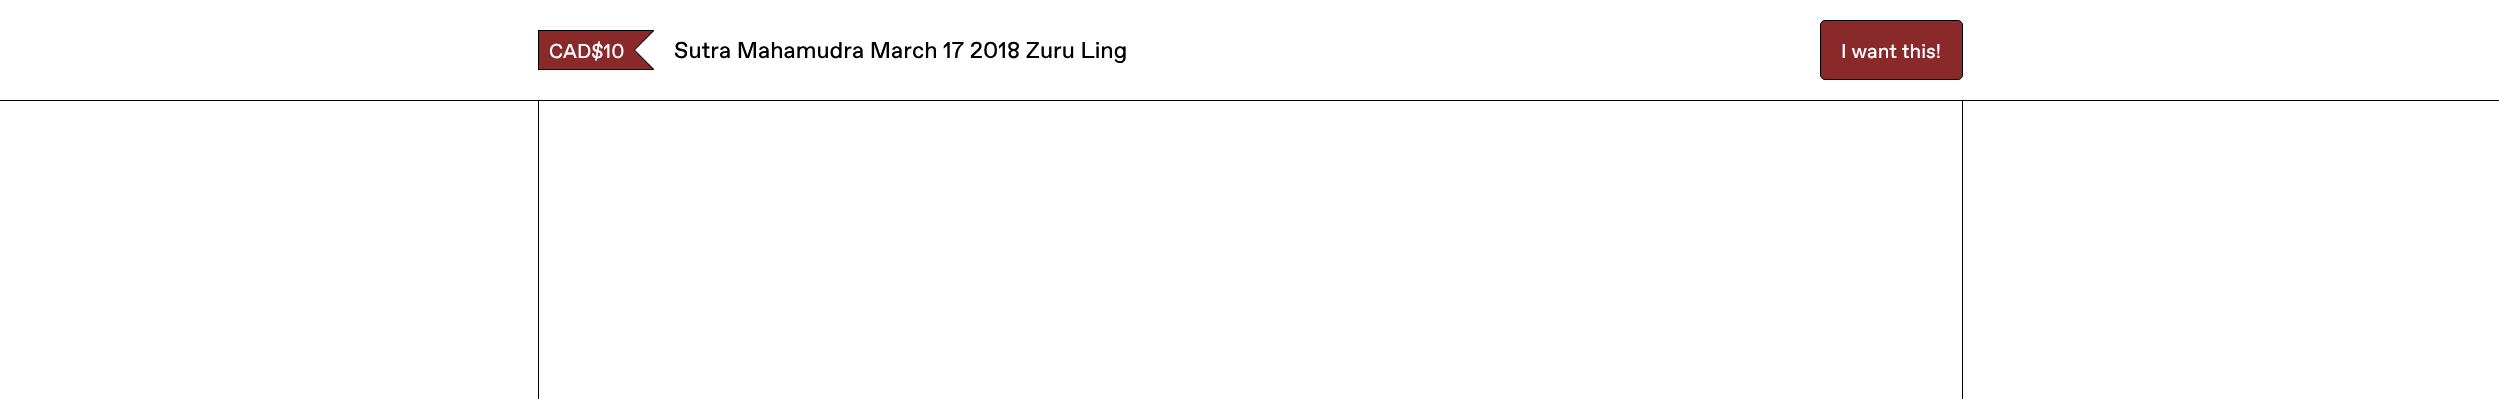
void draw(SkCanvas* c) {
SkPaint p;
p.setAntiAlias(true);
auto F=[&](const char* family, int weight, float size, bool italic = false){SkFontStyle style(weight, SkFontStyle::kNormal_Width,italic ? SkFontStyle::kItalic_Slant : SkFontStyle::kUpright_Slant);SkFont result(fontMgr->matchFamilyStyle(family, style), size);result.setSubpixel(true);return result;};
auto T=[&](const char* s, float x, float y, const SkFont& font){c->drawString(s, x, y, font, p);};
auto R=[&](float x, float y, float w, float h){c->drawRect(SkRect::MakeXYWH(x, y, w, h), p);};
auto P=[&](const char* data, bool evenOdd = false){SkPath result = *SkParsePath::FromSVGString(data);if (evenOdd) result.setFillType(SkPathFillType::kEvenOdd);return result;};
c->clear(0xffffffff);
p.setStroke(true);
p.setStrokeWidth(1);
p.setColor(0xff000000);
c->drawRect(SkRect::MakeXYWH(538.5,80.5,1424,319),p);
p.setStroke(false);
R(0,100,2499,1);
p.setColor(0xffffffff);
R(538,80,1425,20);
p.setColor(0xff000000);
R(538,30,116,1);
R(538,69,116,1);
R(538,30,1,40);
p.setColor(0xff8a2929);
R(539,31,95,38);
p.setColor(0xff000000);
c->drawPath(P("M634 31h20l-19 19zm20 38h-20l1-19z"),p);
R(634,49,1,2);
p.setColor(0xff8a2929);
c->drawPath(P("M632.5 31h20l-18.5 19zm20 38h-20l1.5-19z"),p);
auto f1 = F("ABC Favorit",400,20);
p.setColor(0xffffffff);
T("CAD$10",549,58,f1);
auto f2 = F("ABC Favorit",400,23);
p.setColor(0xff000000);
T("Sutra Mahamudra March 17 2018 Zuru Ling",674,58,f2);
p.setColor(0xff8a2929);
c->drawRoundRect(SkRect::MakeXYWH(1820.5,20.5,142,59),4.5,4.5,p);
p.setStroke(true);
p.setColor(0xff000000);
c->drawRoundRect(SkRect::MakeXYWH(1820.5,20.5,142,59),4.5,4.5,p);
p.setStroke(false);
p.setColor(0xffffffff);
T("I want this!",1841,58,f1);
}
